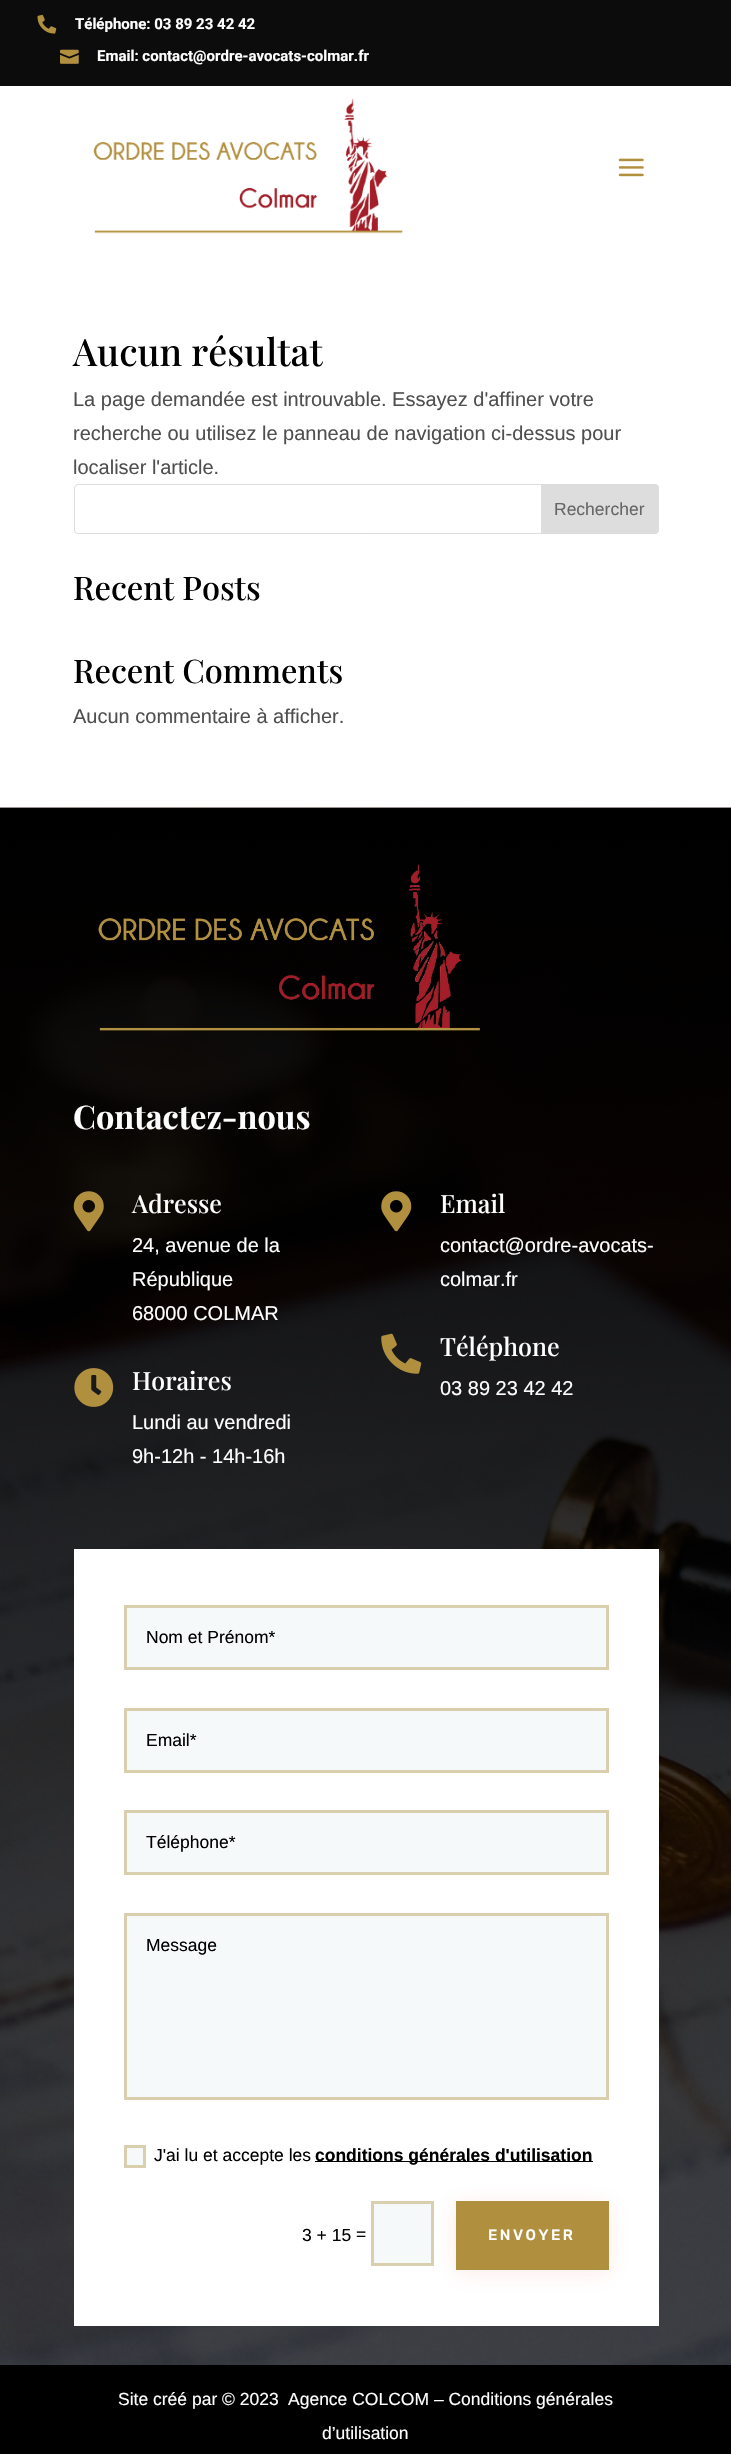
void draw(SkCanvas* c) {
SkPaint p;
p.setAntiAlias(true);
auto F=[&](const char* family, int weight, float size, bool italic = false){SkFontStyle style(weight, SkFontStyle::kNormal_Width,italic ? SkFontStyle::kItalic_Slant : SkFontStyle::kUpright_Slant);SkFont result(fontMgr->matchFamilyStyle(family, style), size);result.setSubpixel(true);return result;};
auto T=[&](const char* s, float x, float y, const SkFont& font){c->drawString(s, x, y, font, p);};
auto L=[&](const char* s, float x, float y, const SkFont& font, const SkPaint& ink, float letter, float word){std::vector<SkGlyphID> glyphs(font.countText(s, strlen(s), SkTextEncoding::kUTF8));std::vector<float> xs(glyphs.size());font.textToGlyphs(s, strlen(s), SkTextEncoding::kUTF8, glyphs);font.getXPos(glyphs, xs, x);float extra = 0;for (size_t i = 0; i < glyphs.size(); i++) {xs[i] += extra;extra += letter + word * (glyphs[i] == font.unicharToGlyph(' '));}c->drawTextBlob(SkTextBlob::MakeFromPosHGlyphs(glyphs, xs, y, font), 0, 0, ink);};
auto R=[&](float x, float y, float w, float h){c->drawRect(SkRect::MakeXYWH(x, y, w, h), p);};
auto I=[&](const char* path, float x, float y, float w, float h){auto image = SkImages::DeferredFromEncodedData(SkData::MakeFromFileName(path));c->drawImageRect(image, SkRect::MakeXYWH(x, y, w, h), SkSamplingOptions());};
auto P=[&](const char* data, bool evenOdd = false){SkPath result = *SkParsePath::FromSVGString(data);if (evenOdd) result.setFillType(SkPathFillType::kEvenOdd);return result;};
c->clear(0xffffffff);
p.setColor(0xff0c0c0c);
R(0,0,731,86);
I("1.png",37,14,20,20);
auto f1 = F("Roboto",700,15);
p.setColor(0xffffffff);
T("Téléphone: 03 89 23 42 42",75,29,f1);
I("2.png",60,49,19,15);
T("Email: contact@ordre-avocats-colmar.fr",97,61,f1);
I("3.png",93,98,310,136);
I("4.png",618,158,26,19);
auto f2 = F("Playfair Display",500,37.5);
p.setColor(0xff000000);
T("Aucun résultat",73,366,f2);
auto f3 = F("Liberation Sans",400,20);
p.setColor(0xff4f4f4f);
T("La page demandée est introuvable. Essayez d'affiner votre",73,406,f3);
T("recherche ou utilisez le panneau de navigation ci-dessus pour",73,440,f3);
T("localiser l'article.",73,474,f3);
p.setStroke(true);
p.setStrokeWidth(1);
p.setColor(0xffdddddd);
c->drawRoundRect(SkRect::MakeXYWH(74.5,484.5,584,49),3.5,3.5,p);
p.setStroke(false);
c->drawPath(P("M541.5 484.5h113.5c2 0 3.5 1.5 3.5 3.5v42c0 2-1.5 3.5-3.5 3.5h-113.5z"),p);
p.setStroke(true);
c->drawPath(P("M541.5 484.5h113.5c2 0 3.5 1.5 3.5 3.5v42c0 2-1.5 3.5-3.5 3.5h-113.5z"),p);
auto f4 = F("Liberation Sans",400,17.5);
p.setStroke(false);
p.setColor(0xff666666);
T("Rechercher",554,515,f4);
auto f5 = F("Playfair Display",500,32.5);
p.setColor(0xff000000);
T("Recent Posts",73,600,f5);
T("Recent Comments",73,683,f5);
p.setColor(0xff4f4f4f);
T("Aucun commentaire à afficher.",73,723,f3);
I("5.png",0,807,731,1558);
I("6.png",98,864,382,167);
auto f6 = F("Playfair Display",700,32.5);
p.setColor(0xffffffff);
T("Contactez-nous",73,1129,f6);
I("7.png",73,1191,31,41);
auto f7 = F("Playfair Display",500,25);
T("Adresse",132,1213,f7);
T("24, avenue de la",132,1252,f3);
T("République",132,1286,f3);
T("68000 COLMAR",132,1320,f3);
I("8.png",74,1368,40,39);
T("Horaires",132,1390,f7);
T("Lundi au vendredi",132,1429,f3);
T("9h-12h - 14h-16h",132,1463,f3);
I("9.png",381,1191,31,41);
T("Email",440,1213,f7);
T("contact@ordre-avocats-",440,1252,f3);
T("colmar.fr",440,1286,f3);
I("10.png",381,1333,41,41);
T("Téléphone",440,1356,f7);
T("03 89 23 42 42",440,1395,f3);
R(74,1549,585,777);
p.setColor(0xfff5f9fa);
c->drawRect(SkRect::MakeXYWH(125.5,1606.5,482,62),p);
p.setStroke(true);
p.setStrokeWidth(3);
p.setColor(0xffd9cfaf);
c->drawRect(SkRect::MakeXYWH(125.5,1606.5,482,62),p);
p.setStroke(false);
p.setColor(0xff000000);
T("Nom et Prénom*",146,1643,f4);
p.setColor(0xfff5f9fa);
c->drawRect(SkRect::MakeXYWH(125.5,1709.5,482,62),p);
p.setStroke(true);
p.setColor(0xffd9cfaf);
c->drawRect(SkRect::MakeXYWH(125.5,1709.5,482,62),p);
p.setStroke(false);
p.setColor(0xff000000);
T("Email*",146,1746,f4);
p.setColor(0xfff5f9fa);
c->drawRect(SkRect::MakeXYWH(125.5,1811.5,482,62),p);
p.setStroke(true);
p.setColor(0xffd9cfaf);
c->drawRect(SkRect::MakeXYWH(125.5,1811.5,482,62),p);
p.setStroke(false);
p.setColor(0xff000000);
T("Téléphone*",146,1848,f4);
p.setColor(0xfff5f9fa);
c->drawRect(SkRect::MakeXYWH(125.5,1914.5,482,184),p);
p.setStroke(true);
p.setColor(0xffd9cfaf);
c->drawRect(SkRect::MakeXYWH(125.5,1914.5,482,184),p);
p.setStroke(false);
p.setColor(0xff000000);
T("Message",146,1951,f4);
p.setColor(0xfff5f9fa);
c->drawRect(SkRect::MakeXYWH(125.5,2146.5,19,20),p);
p.setStroke(true);
p.setColor(0xffd9cfaf);
c->drawRect(SkRect::MakeXYWH(125.5,2146.5,19,20),p);
p.setStroke(false);
p.setColor(0xff000000);
T("J'ai lu et accepte les",154,2161,f4);
R(315,2161,278,1);
auto f8 = F("Liberation Sans",700,17.5);
T("conditions générales d'utilisation",315,2161,f8);
T("3 + 15",302,2241,f4);
T("=",356,2240,f4);
p.setColor(0xfff5f9fa);
c->drawRect(SkRect::MakeXYWH(372.5,2202.5,60,62),p);
p.setStroke(true);
p.setColor(0xffd9cfaf);
c->drawRect(SkRect::MakeXYWH(372.5,2202.5,60,62),p);
p.setStroke(false);
p.setColor(0x1aef3b24);
p.setMaskFilter(SkMaskFilter::MakeBlur(kNormal_SkBlurStyle, 11));
c->drawRect(SkRect::MakeXYWH(456,2204,153,69),p);
p.setMaskFilter(nullptr);
p.setColor(0xffb08f3f);
R(456,2201,153,69);
auto f9 = F("Rubik",500,15);
p.setColor(0xffffffff);
L("ENVOYER",488,2240,f9,p,2.5,0);
p.setColor(0xff000000);
R(0,2365,731,89);
p.setColor(0xffffffff);
T("Site créé par © 2023",118,2405,f4);
T("Agence COLCOM – Conditions générales",288,2405,f4);
T("d’utilisation",322,2439,f4);
}
